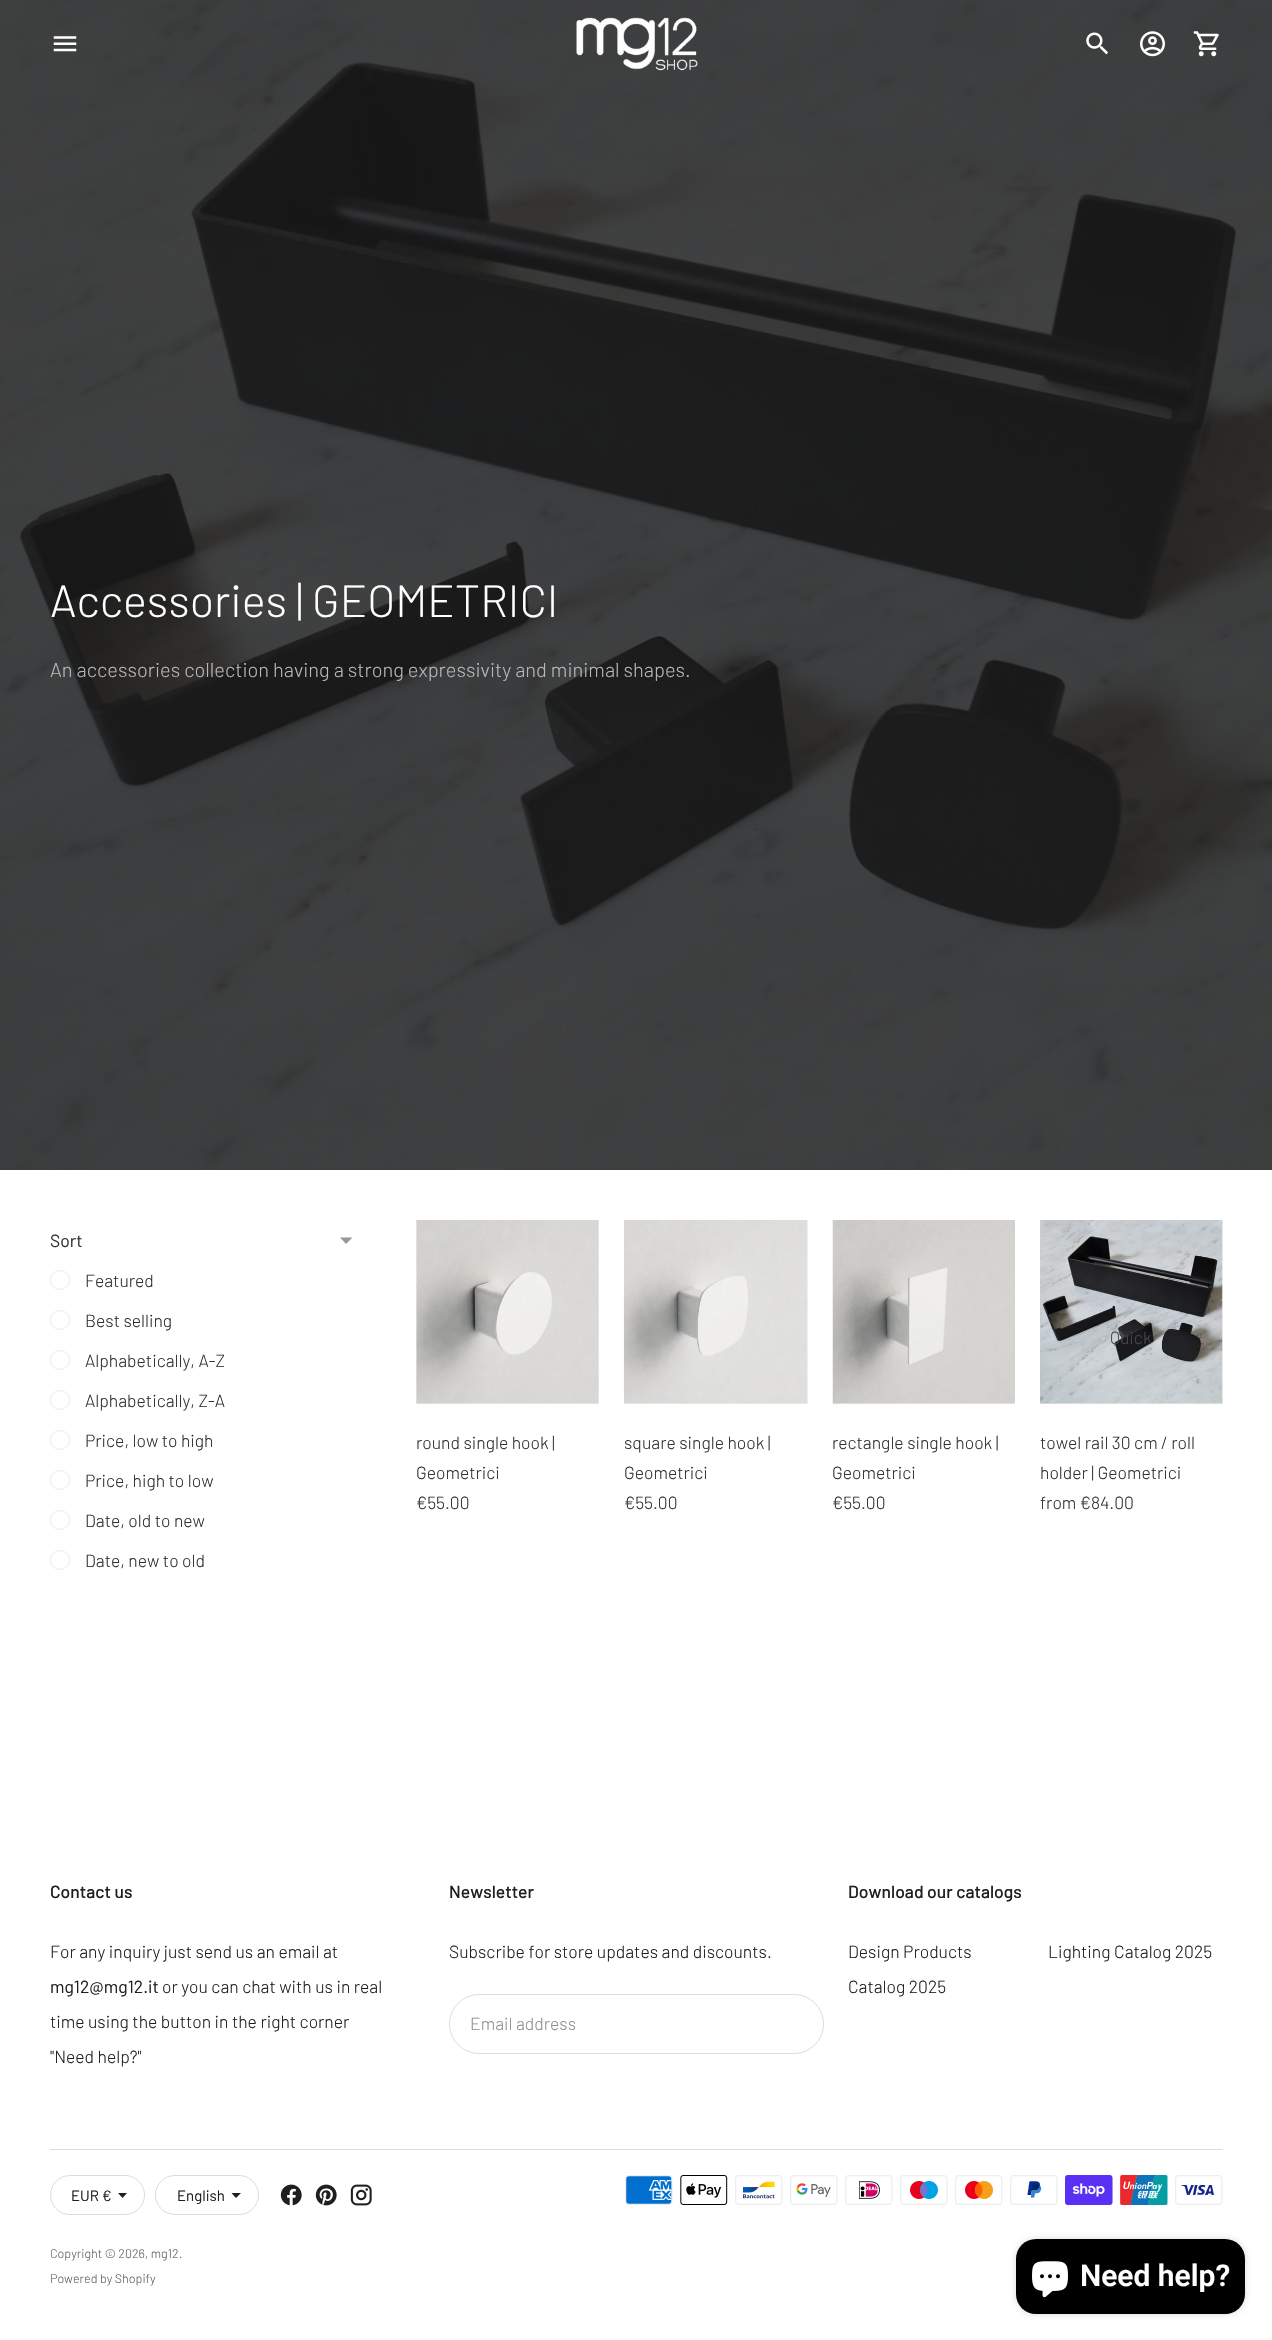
void draw(SkCanvas* c) {
SkPaint p;
p.setAntiAlias(true);
auto F=[&](const char* family, int weight, float size, bool italic = false){SkFontStyle style(weight, SkFontStyle::kNormal_Width,italic ? SkFontStyle::kItalic_Slant : SkFontStyle::kUpright_Slant);SkFont result(fontMgr->matchFamilyStyle(family, style), size);result.setSubpixel(true);return result;};
auto T=[&](const char* s, float x, float y, const SkFont& font){c->drawString(s, x, y, font, p);};
auto R=[&](float x, float y, float w, float h){c->drawRect(SkRect::MakeXYWH(x, y, w, h), p);};
auto Q=[&](float x, float y, float w, float h, float radius){c->drawRoundRect(SkRect::MakeXYWH(x, y, w, h), radius, radius, p);};
auto I=[&](const char* path, float x, float y, float w, float h){auto image = SkImages::DeferredFromEncodedData(SkData::MakeFromFileName(path));c->drawImageRect(image, SkRect::MakeXYWH(x, y, w, h), SkSamplingOptions());};
auto P=[&](const char* data, bool evenOdd = false){SkPath result = *SkParsePath::FromSVGString(data);if (evenOdd) result.setFillType(SkPathFillType::kEvenOdd);return result;};
c->clear(0xffffffff);
I("6.png",0,0,1272,1170);
I("1.png",53,36,24,16);
I("2.png",576,17,122,54);
I("3.png",1086,32,22,23);
I("4.png",1140,31,25,26);
I("5.png",1193,31,26,26);
auto f1 = F("Barlow",300,45);
p.setColor(0xffffffff);
T("Accessories | GEOMETRICI",50,617,f1);
auto f2 = F("Barlow",300,20);
p.setColor(0xffb8b8b8);
T("An accessories collection having a strong expressivity and minimal shapes.",50,677,f2);
auto f3 = F("Barlow",400,17.5);
p.setColor(0xff313131);
T("Sort",50,1247,f3);
p.setColor(0xff989898);
c->drawPath(P("M340 1237.5l6 6.5l6.5-6.5z"),p);
p.setStroke(true);
p.setStrokeWidth(1);
p.setColor(0xffeaeaea);
c->drawCircle(60,1280,9.5,p);
auto f4 = F("Barlow",300,17.5);
p.setStroke(false);
p.setColor(0xff313131);
T("Featured",85,1287,f4);
p.setStroke(true);
p.setColor(0xffeaeaea);
c->drawCircle(60,1320,9.5,p);
p.setStroke(false);
p.setColor(0xff313131);
T("Best selling",85,1327,f4);
p.setStroke(true);
p.setColor(0xffeaeaea);
c->drawCircle(60,1360,9.5,p);
p.setStroke(false);
p.setColor(0xff313131);
T("Alphabetically, A-Z",85,1367,f4);
p.setStroke(true);
p.setColor(0xffeaeaea);
c->drawCircle(60,1400,9.5,p);
p.setStroke(false);
p.setColor(0xff313131);
T("Alphabetically, Z-A",85,1407,f4);
p.setStroke(true);
p.setColor(0xffeaeaea);
c->drawCircle(60,1440,9.5,p);
p.setStroke(false);
p.setColor(0xff313131);
T("Price, low to high",85,1447,f4);
p.setStroke(true);
p.setColor(0xffeaeaea);
c->drawCircle(60,1480,9.5,p);
p.setStroke(false);
p.setColor(0xff313131);
T("Price, high to low",85,1487,f4);
p.setStroke(true);
p.setColor(0xffeaeaea);
c->drawCircle(60,1520,9.5,p);
p.setStroke(false);
p.setColor(0xff313131);
T("Date, old to new",85,1527,f4);
p.setStroke(true);
p.setColor(0xffeaeaea);
c->drawCircle(60,1560,9.5,p);
p.setStroke(false);
p.setColor(0xff313131);
T("Date, new to old",85,1567,f4);
p.setColor(0xfff5f5f5);
R(416,1220,183,184);
I("7.png",416,1220,183,184);
p.setColor(0xff313131);
T("round single hook |",416,1449,f4);
T("Geometrici",416,1479,f4);
T("€55.00",416,1509,f4);
p.setColor(0xfff5f5f5);
R(624,1220,184,184);
I("8.png",623,1220,185,184);
p.setColor(0xff313131);
T("square single hook |",624,1449,f4);
T("Geometrici",624,1479,f4);
T("€55.00",624,1509,f4);
p.setColor(0xfff5f5f5);
R(833,1403,182,1);
I("9.png",832,1220,183,184);
p.setColor(0xff313131);
T("rectangle single hook |",832,1449,f4);
T("Geometrici",832,1479,f4);
T("€55.00",832,1509,f4);
p.setColor(0xfff5f5f5);
R(1040,1220,183,184);
I("10.png",1040,1220,183,184);
p.setColor(0xff48494c);
T("Quick",1110,1344,f4);
p.setColor(0xff313131);
T("towel rail 30 cm / roll",1040,1449,f4);
T("holder | Geometrici",1040,1479,f4);
T("from €84.00",1040,1509,f4);
auto f5 = F("Barlow",500,17.5);
p.setColor(0xff1f1f1f);
T("Contact us",50,1898,f5);
T("For any inquiry just send us an email at",50,1958,f4);
T("mg12@mg12.it",50,1993,f3);
T("or you can chat with us in real",162,1993,f4);
T("time using the button in the right corner",50,2028,f4);
T("\"Need help?\"",50,2063,f4);
T("Newsletter",449,1898,f5);
T("Subscribe for store updates and discounts.",449,1958,f4);
p.setStroke(true);
p.setColor(0xffdcdcdc);
c->drawRoundRect(SkRect::MakeXYWH(449.5,1994.5,374,59),29.5,29.5,p);
p.setStroke(false);
p.setColor(0xff8f8f8f);
T("Email address",470,2030,f4);
p.setColor(0xff1f1f1f);
T("Download our catalogs",848,1898,f5);
T("Design Products",848,1958,f4);
T("Catalog 2025",848,1993,f4);
T("Lighting Catalog 2025",1048,1958,f4);
p.setColor(0xffdcdcdc);
R(50,2149,1173,1);
p.setStroke(true);
c->drawRoundRect(SkRect::MakeXYWH(50.5,2175.5,94,39),19.5,19.5,p);
auto f6 = F("Barlow",400,15);
p.setStroke(false);
p.setColor(0xff1f1f1f);
T("EUR €",71,2201,f6);
c->drawPath(P("M118 2193l4.5 5l4.5-5z"),p);
p.setStroke(true);
p.setColor(0xffdcdcdc);
c->drawRoundRect(SkRect::MakeXYWH(155.5,2175.5,103,39),19.5,19.5,p);
p.setStroke(false);
p.setColor(0xff1f1f1f);
T("English",177,2201,f6);
c->drawPath(P("M231.5 2193l4.5 5l5-5z"),p);
I("11.png",280,2184,22,22);
I("12.png",315,2184,22,22);
I("13.png",350,2184,22,22);
I("14.png",625,2175,48,30);
I("15.png",680,2175,48,30);
I("16.png",735,2175,48,30);
I("17.png",790,2175,48,30);
I("18.png",845,2175,48,30);
I("19.png",900,2175,48,30);
I("20.png",955,2175,48,30);
I("21.png",1010,2175,48,30);
I("22.png",1065,2175,48,30);
I("23.png",1120,2175,48,30);
I("24.png",1175,2175,48,30);
auto f7 = F("Barlow",300,12.5);
p.setColor(0xff626262);
T("Copyright © 2026, mg12.",50,2258,f7);
T("Powered by Shopify",50,2283,f7);
p.setColor(0x26000000);
p.setMaskFilter(SkMaskFilter::MakeBlur(kNormal_SkBlurStyle, 3));
c->drawRoundRect(SkRect::MakeXYWH(1016,2239,229,75),20,20,p);
p.setMaskFilter(nullptr);
p.setColor(0xff000000);
Q(1016,2239,229,75,20);
I("25.png",1032,2261,36,37);
auto f8 = F("Roboto",600,30);
p.setColor(0xffffffff);
T("Need help?",1080,2286,f8);
}
